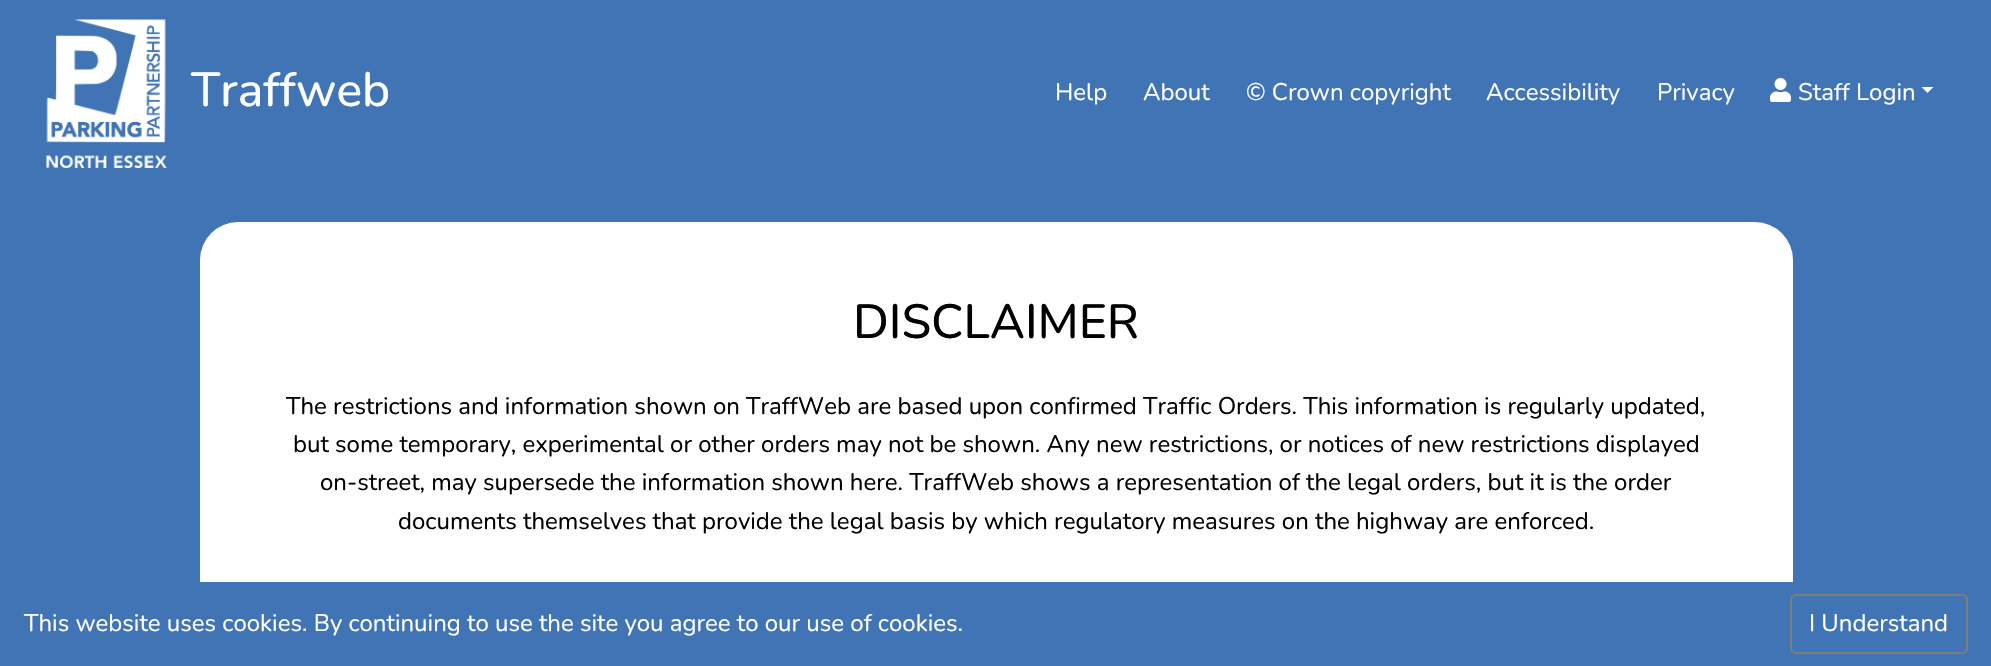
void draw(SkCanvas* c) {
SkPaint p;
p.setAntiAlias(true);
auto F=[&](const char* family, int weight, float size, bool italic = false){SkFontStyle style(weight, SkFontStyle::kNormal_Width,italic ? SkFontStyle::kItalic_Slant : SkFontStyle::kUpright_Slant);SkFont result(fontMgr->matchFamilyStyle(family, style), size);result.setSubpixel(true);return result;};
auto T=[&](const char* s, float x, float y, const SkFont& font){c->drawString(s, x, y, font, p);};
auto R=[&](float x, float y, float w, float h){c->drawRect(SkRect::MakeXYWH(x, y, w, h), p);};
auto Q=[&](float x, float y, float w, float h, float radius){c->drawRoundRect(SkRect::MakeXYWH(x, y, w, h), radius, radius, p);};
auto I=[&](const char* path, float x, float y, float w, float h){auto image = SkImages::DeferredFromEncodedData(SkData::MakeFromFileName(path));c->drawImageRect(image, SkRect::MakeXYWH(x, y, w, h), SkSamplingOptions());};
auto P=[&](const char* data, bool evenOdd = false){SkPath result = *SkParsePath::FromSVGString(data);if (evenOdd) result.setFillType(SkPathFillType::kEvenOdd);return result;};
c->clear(0xff4074b4);
I("1.png",46,19,121,149);
auto f1 = F("Nunito",500,48);
p.setColor(0xffffffff);
T("Traffweb",191,106,f1);
auto f2 = F("Nunito",400,24);
T("Help",1055,100,f2);
T("About",1143,100,f2);
T("© Crown copyright",1246,100,f2);
T("Accessibility",1486,100,f2);
T("Privacy",1657,100,f2);
I("2.png",1770,78,21,24);
T("Staff Login",1798,100,f2);
c->drawPath(P("M1921.5 87h12l-6 6z"),p);
Q(200,222,1593,416,38);
p.setColor(0xff000000);
T("DISCLAIMER",853,338,f1);
T("The restrictions and information shown on TraffWeb are based upon confirmed Traffic Orders. This information is regularly updated,",286,414,f2);
T("but some temporary, experimental or other orders may not be shown. Any new restrictions, or notices of new restrictions displayed",293,452,f2);
T("on-street, may supersede the information shown here. TraffWeb shows a representation of the legal orders, but it is the order",320,490,f2);
T("documents themselves that provide the legal basis by which regulatory measures on the highway are enforced.",398,529,f2);
p.setColor(0xff4074b4);
R(200,582,1593,56);
p.setColor(0xffffffff);
T("This website uses cookies. By continuing to use the site you agree to our use of cookies.",24,631,f2);
p.setStroke(true);
p.setStrokeWidth(2);
p.setColor(0xff7d7d7d);
c->drawRoundRect(SkRect::MakeXYWH(1791,595,176,58),5,5,p);
p.setStroke(false);
p.setColor(0xffffffff);
T("I Understand",1809,631,f2);
}
